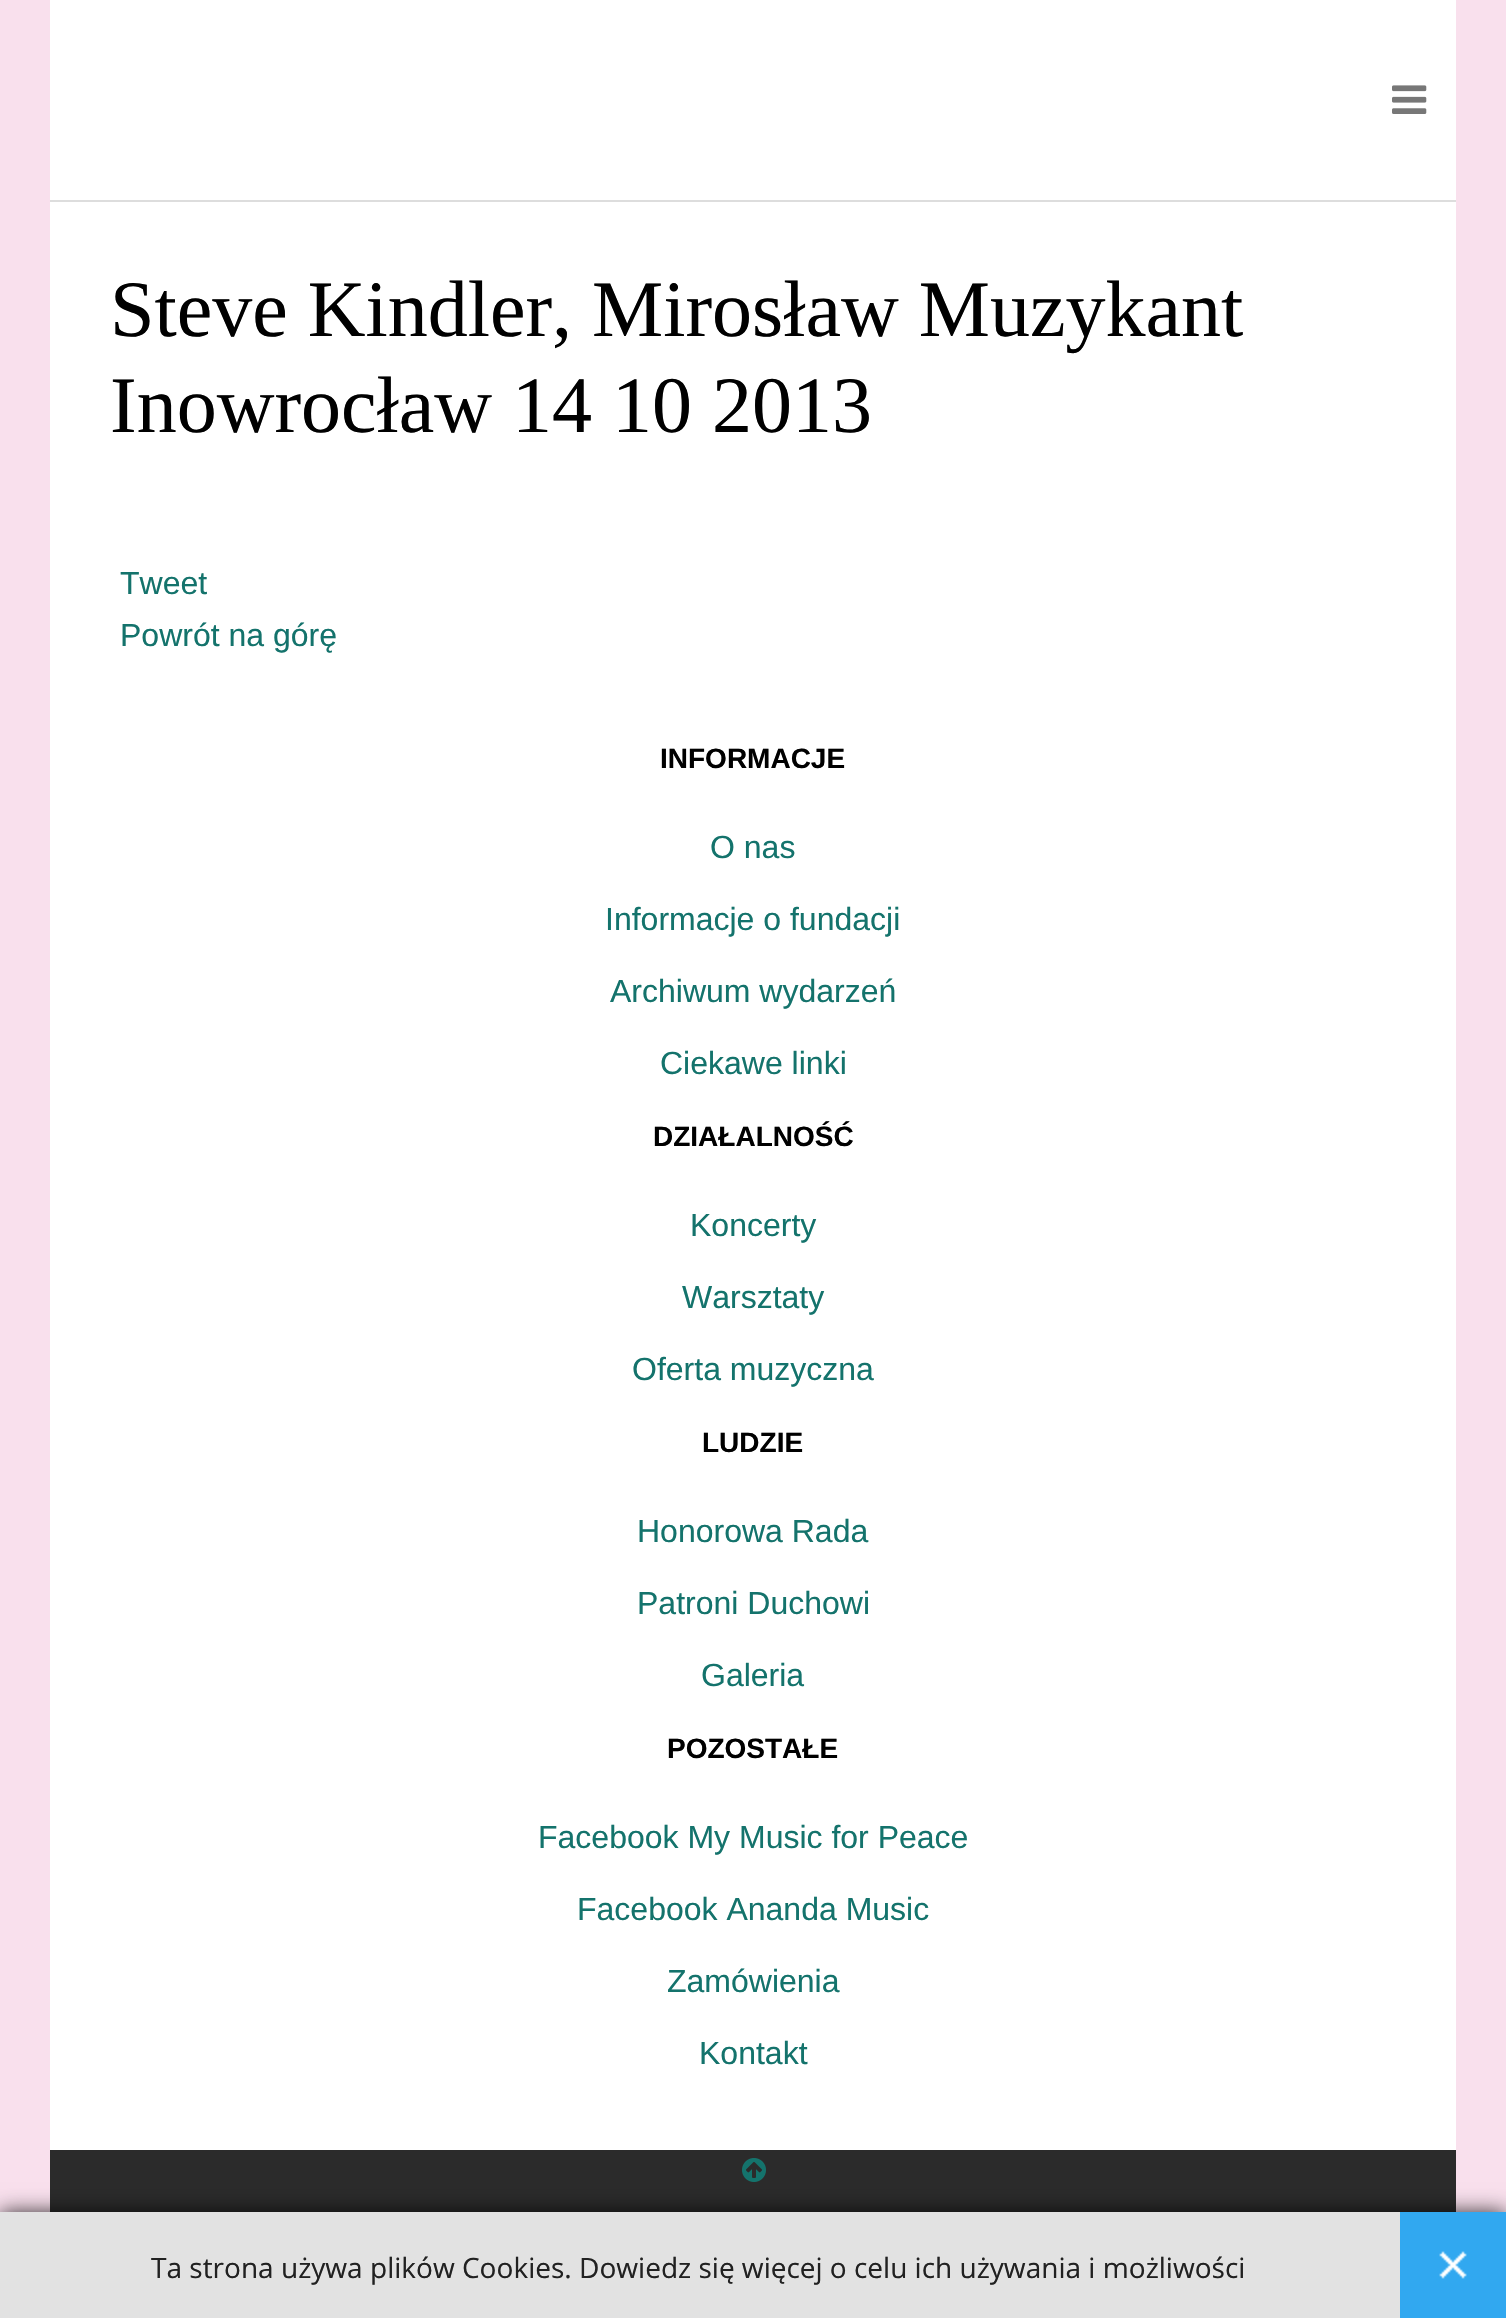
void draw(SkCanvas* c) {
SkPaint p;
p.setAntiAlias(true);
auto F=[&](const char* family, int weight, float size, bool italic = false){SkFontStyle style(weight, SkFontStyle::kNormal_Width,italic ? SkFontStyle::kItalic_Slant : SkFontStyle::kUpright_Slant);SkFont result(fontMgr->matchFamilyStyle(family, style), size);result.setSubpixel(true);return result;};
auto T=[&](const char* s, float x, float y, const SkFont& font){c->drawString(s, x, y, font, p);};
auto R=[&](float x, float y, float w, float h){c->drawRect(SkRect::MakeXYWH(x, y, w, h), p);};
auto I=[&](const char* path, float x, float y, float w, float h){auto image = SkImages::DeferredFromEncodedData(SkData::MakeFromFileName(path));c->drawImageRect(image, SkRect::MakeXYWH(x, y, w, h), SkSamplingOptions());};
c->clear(0xfff9e0ed);
p.setColor(0xffffffff);
R(50,0,1406,200);
I("1.png",1392,85,35,29);
R(50,202,1406,1948);
p.setColor(0xffdddddd);
R(50,200,1406,2);
auto f1 = F("Liberation Serif",400,80);
p.setColor(0xff000000);
T("Steve Kindler, Mirosław Muzykant",110,336,f1);
T("Inowrocław 14 10 2013",110,432,f1);
auto f2 = F("Liberation Sans",400,32);
p.setColor(0xff14736c);
T("Tweet",120,594,f2);
T("Powrót na górę",120,646,f2);
auto f3 = F("Liberation Sans",700,28);
p.setColor(0xff000000);
T("INFORMACJE",660,768,f3);
p.setColor(0xff14736c);
T("O nas",710,858,f2);
T("Informacje o fundacji",605,930,f2);
T("Archiwum wydarzeń",610,1002,f2);
T("Ciekawe linki",660,1074,f2);
p.setColor(0xff000000);
T("DZIAŁALNOŚĆ",653,1146,f3);
p.setColor(0xff14736c);
T("Koncerty",690,1236,f2);
T("Warsztaty",682,1308,f2);
T("Oferta muzyczna",632,1380,f2);
p.setColor(0xff000000);
T("LUDZIE",702,1452,f3);
p.setColor(0xff14736c);
T("Honorowa Rada",637,1542,f2);
T("Patroni Duchowi",637,1614,f2);
T("Galeria",701,1686,f2);
p.setColor(0xff000000);
T("POZOSTAŁE",667,1758,f3);
p.setColor(0xff14736c);
T("Facebook My Music for Peace",538,1848,f2);
T("Facebook Ananda Music",577,1920,f2);
T("Zamówienia",667,1992,f2);
T("Kontakt",699,2064,f2);
p.setColor(0xff2b2b2b);
R(50,2150,1406,62);
I("2.png",742,2158,24,24);
p.setColor(0xcc000000);
p.setMaskFilter(SkMaskFilter::MakeBlur(kNormal_SkBlurStyle, 10));
c->drawRect(SkRect::MakeXYWH(0,2212,1506,106),p);
p.setMaskFilter(nullptr);
p.setColor(0xffe2e2e2);
R(0,2212,1400,106);
auto f4 = F("Open Sans",400,28);
p.setColor(0xff212121);
T("Ta strona używa plików Cookies. Dowiedz się więcej o celu ich używania i możliwości",151,2278,f4);
p.setColor(0xff31a8f0);
R(1400,2212,106,106);
I("3.png",1439,2251,28,28);
}
